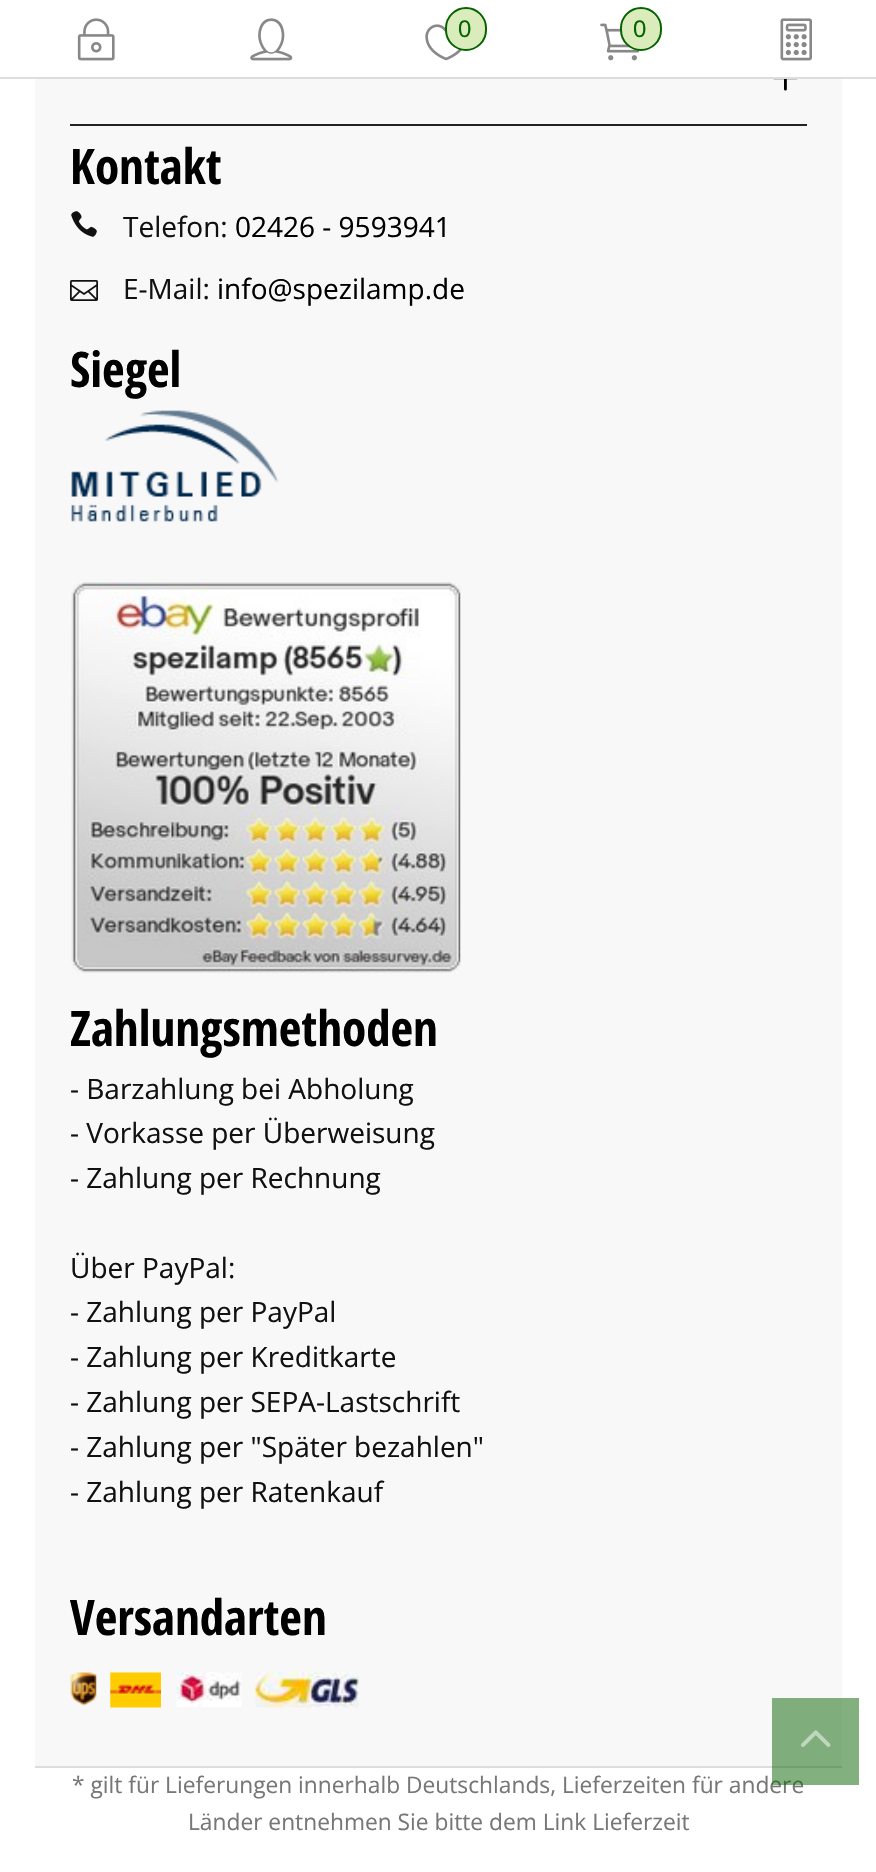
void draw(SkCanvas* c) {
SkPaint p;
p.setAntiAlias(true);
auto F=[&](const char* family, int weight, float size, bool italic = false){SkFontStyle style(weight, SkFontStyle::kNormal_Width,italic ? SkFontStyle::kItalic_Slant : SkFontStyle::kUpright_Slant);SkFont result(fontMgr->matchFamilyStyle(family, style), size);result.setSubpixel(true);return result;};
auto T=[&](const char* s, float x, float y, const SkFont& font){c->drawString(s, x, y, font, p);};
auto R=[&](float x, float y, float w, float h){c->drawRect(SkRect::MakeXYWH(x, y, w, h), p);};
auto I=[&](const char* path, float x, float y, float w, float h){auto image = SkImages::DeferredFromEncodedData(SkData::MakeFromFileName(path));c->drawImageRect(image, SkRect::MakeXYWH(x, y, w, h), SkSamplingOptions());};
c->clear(0xffffffff);
p.setColor(0xffdddddd);
R(0,77,876,2);
I("1.png",77,18,38,43);
I("2.png",250,18,43,43);
I("3.png",425,24,37,37);
p.setColor(0xffdbecbc);
c->drawRoundRect(SkRect::MakeXYWH(446,8,40,42),20,20,p);
p.setStroke(true);
p.setStrokeWidth(2);
p.setColor(0xff056300);
c->drawRoundRect(SkRect::MakeXYWH(446,8,40,42),20,20,p);
auto f1 = F("Liberation Sans",400,24);
p.setStroke(false);
T("0",458,37,f1);
I("4.png",600,23,40,38);
p.setColor(0xffdbecbc);
c->drawRoundRect(SkRect::MakeXYWH(621,8,40,42),20,20,p);
p.setStroke(true);
p.setColor(0xff056300);
c->drawRoundRect(SkRect::MakeXYWH(621,8,40,42),20,20,p);
p.setStroke(false);
T("0",633,37,f1);
I("5.png",780,18,32,43);
p.setColor(0xfff8f8f9);
R(35,79,807,1687);
p.setColor(0xffdddddd);
R(35,1766,807,2);
p.setColor(0xff222222);
R(70,124,737,2);
I("6.png",773,79,25,12);
auto f2 = F("Open Sans Condensed",700,49);
p.setColor(0xff000000);
T("Kontakt",70,184,f2);
I("7.png",71,211,26,26);
auto f3 = F("Open Sans",400,28);
p.setColor(0xff111111);
T("Telefon:",123,237,f3);
p.setColor(0xff000000);
T("02426 - 9593941",235,237,f3);
I("8.png",70,280,28,21);
p.setColor(0xff111111);
T("E-Mail:",123,299,f3);
p.setColor(0xff000000);
T("info@spezilamp.de",217,299,f3);
T("Siegel",70,387,f2);
I("9.png",71,410,208,112);
I("10.png",71,582,390,392);
T("Zahlungsmethoden",70,1046,f2);
p.setColor(0xff111111);
T("- Barzahlung bei Abholung",70,1099,f3);
T("- Vorkasse per Überweisung",70,1143,f3);
T("- Zahlung per Rechnung",70,1188,f3);
T("Über PayPal:",70,1278,f3);
T("- Zahlung per PayPal",70,1322,f3);
T("- Zahlung per Kreditkarte",70,1367,f3);
T("- Zahlung per SEPA-Lastschrift",70,1412,f3);
T("- Zahlung per \"Später bezahlen\"",70,1457,f3);
T("- Zahlung per Ratenkauf",70,1502,f3);
p.setColor(0xff000000);
T("Versandarten",70,1635,f2);
I("11.png",70,1672,27,35);
I("12.png",110,1672,51,36);
I("13.png",176,1672,66,35);
I("14.png",255,1672,104,36);
auto f4 = F("Open Sans",400,22.75);
p.setColor(0xff777777);
T("* gilt für Lieferungen innerhalb Deutschlands, Lieferzeiten für andere",72,1793,f4);
p.setColor(0x80056300);
R(772,1698,87,87);
I("15.png",801,1730,30,17);
p.setColor(0xff777777);
T("Länder entnehmen Sie bitte dem Link Lieferzeit",188,1830,f4);
}
